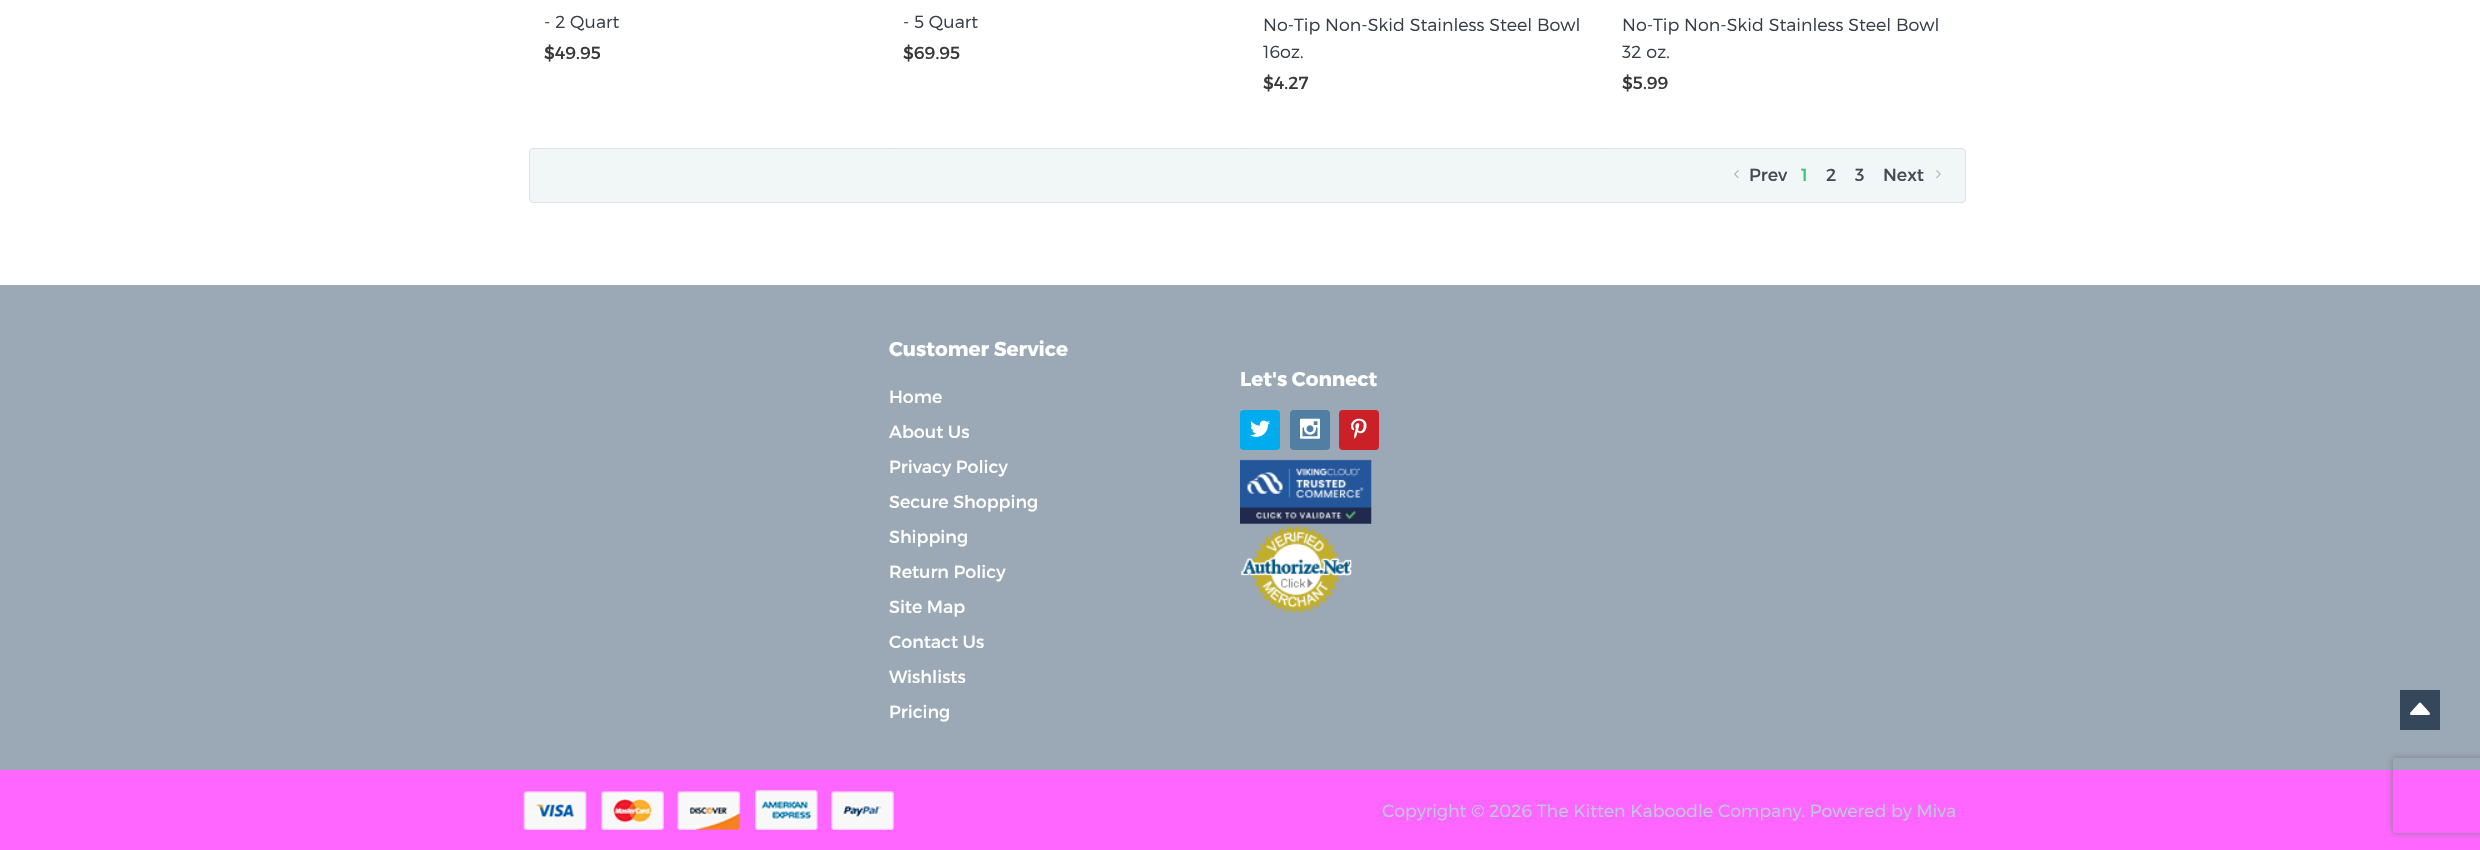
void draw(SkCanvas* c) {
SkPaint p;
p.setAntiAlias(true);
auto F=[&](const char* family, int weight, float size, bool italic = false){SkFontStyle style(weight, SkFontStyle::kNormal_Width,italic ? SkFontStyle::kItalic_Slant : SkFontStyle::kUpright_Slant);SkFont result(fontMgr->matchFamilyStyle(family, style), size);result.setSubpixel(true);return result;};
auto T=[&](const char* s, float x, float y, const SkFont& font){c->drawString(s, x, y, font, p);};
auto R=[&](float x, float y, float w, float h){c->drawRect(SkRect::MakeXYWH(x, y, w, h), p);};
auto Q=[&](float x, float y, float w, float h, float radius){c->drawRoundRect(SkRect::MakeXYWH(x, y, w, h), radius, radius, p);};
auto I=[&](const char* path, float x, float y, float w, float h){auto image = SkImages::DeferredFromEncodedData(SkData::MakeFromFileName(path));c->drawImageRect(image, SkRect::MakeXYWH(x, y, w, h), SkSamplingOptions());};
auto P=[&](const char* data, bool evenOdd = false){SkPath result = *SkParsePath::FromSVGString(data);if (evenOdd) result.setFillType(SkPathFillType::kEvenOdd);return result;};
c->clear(0xffffffff);
auto f1 = F("Montserrat",300,17.5);
p.setColor(0xff383f48);
T("- 2 Quart",544,28,f1);
auto f2 = F("Montserrat",400,17.5);
p.setColor(0xff393939);
T("$49.95",544,59,f2);
p.setColor(0xff383f48);
T("- 5 Quart",903,28,f1);
p.setColor(0xff393939);
T("$69.95",903,59,f2);
p.setColor(0xff383f48);
T("No-Tip Non-Skid Stainless Steel Bowl",1263,31,f1);
T("16oz.",1263,58,f1);
p.setColor(0xff393939);
T("$4.27",1263,89,f2);
p.setColor(0xff383f48);
T("No-Tip Non-Skid Stainless Steel Bowl",1622,31,f1);
T("32 oz.",1622,58,f1);
p.setColor(0xff393939);
T("$5.99",1622,89,f2);
p.setColor(0xfff1f6f7);
c->drawRoundRect(SkRect::MakeXYWH(529.5,148.5,1436,54),3.5,3.5,p);
p.setStroke(true);
p.setStrokeWidth(1);
p.setColor(0xffdbe3e5);
c->drawRoundRect(SkRect::MakeXYWH(529.5,148.5,1436,54),3.5,3.5,p);
I("1.png",1734,170,5,9);
p.setStroke(false);
p.setColor(0xff434a54);
T("Prev",1749,181,f2);
p.setColor(0xff38c574);
T("1",1801,181,f2);
p.setColor(0xff434a54);
T("2",1826,181,f2);
T("3",1855,181,f2);
T("Next",1883,181,f2);
I("2.png",1936,170,5,9);
p.setColor(0xff9ba8b5);
R(0,285,2480,485);
auto f3 = F("Montserrat",700,20);
p.setColor(0xffffffff);
T("Customer Service",889,356,f3);
T("Home",889,403,f2);
T("About Us",889,438,f2);
T("Privacy Policy",889,473,f2);
T("Secure Shopping",889,508,f2);
T("Shipping",889,543,f2);
T("Return Policy",889,578,f2);
T("Site Map",889,613,f2);
T("Contact Us",889,648,f2);
T("Wishlists",889,683,f2);
T("Pricing",889,718,f2);
T("Let's Connect",1240,386,f3);
p.setColor(0xff00aced);
Q(1240,410,40,40,4);
I("3.png",1250,420,20,17);
p.setColor(0xff517fa4);
Q(1290,410,40,40,4);
I("4.png",1300,418,20,21);
p.setColor(0xffcb2027);
Q(1339,410,40,40,4);
I("5.png",1351,418,16,21);
I("6.png",1240,459,132,65);
I("7.png",1241,526,111,87);
p.setColor(0xff35475b);
R(2400,690,40,40);
I("8.png",2410,702,20,13);
p.setColor(0xffff66ff);
R(0,770,2480,80);
I("9.png",523,789,371,41);
p.setColor(0xffbccbda);
T("Copyright © 2026 The Kitten Kaboodle Company. Powered by Miva",1382,817,f1);
c->save();
c->clipPath(P("M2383 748h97v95h-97zm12.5 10h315c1.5 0 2.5 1 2.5 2.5v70c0 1.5-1 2.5-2.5 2.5h-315c-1.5 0-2.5-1-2.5-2.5v-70c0-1.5 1-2.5 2.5-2.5z",true),true);
p.setColor(0xff808080);
p.setMaskFilter(SkMaskFilter::MakeBlur(kNormal_SkBlurStyle, 3));
c->drawRoundRect(SkRect::MakeXYWH(2393,758,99,75),2.5,2.5,p);
p.setMaskFilter(nullptr);
c->restore();
}
